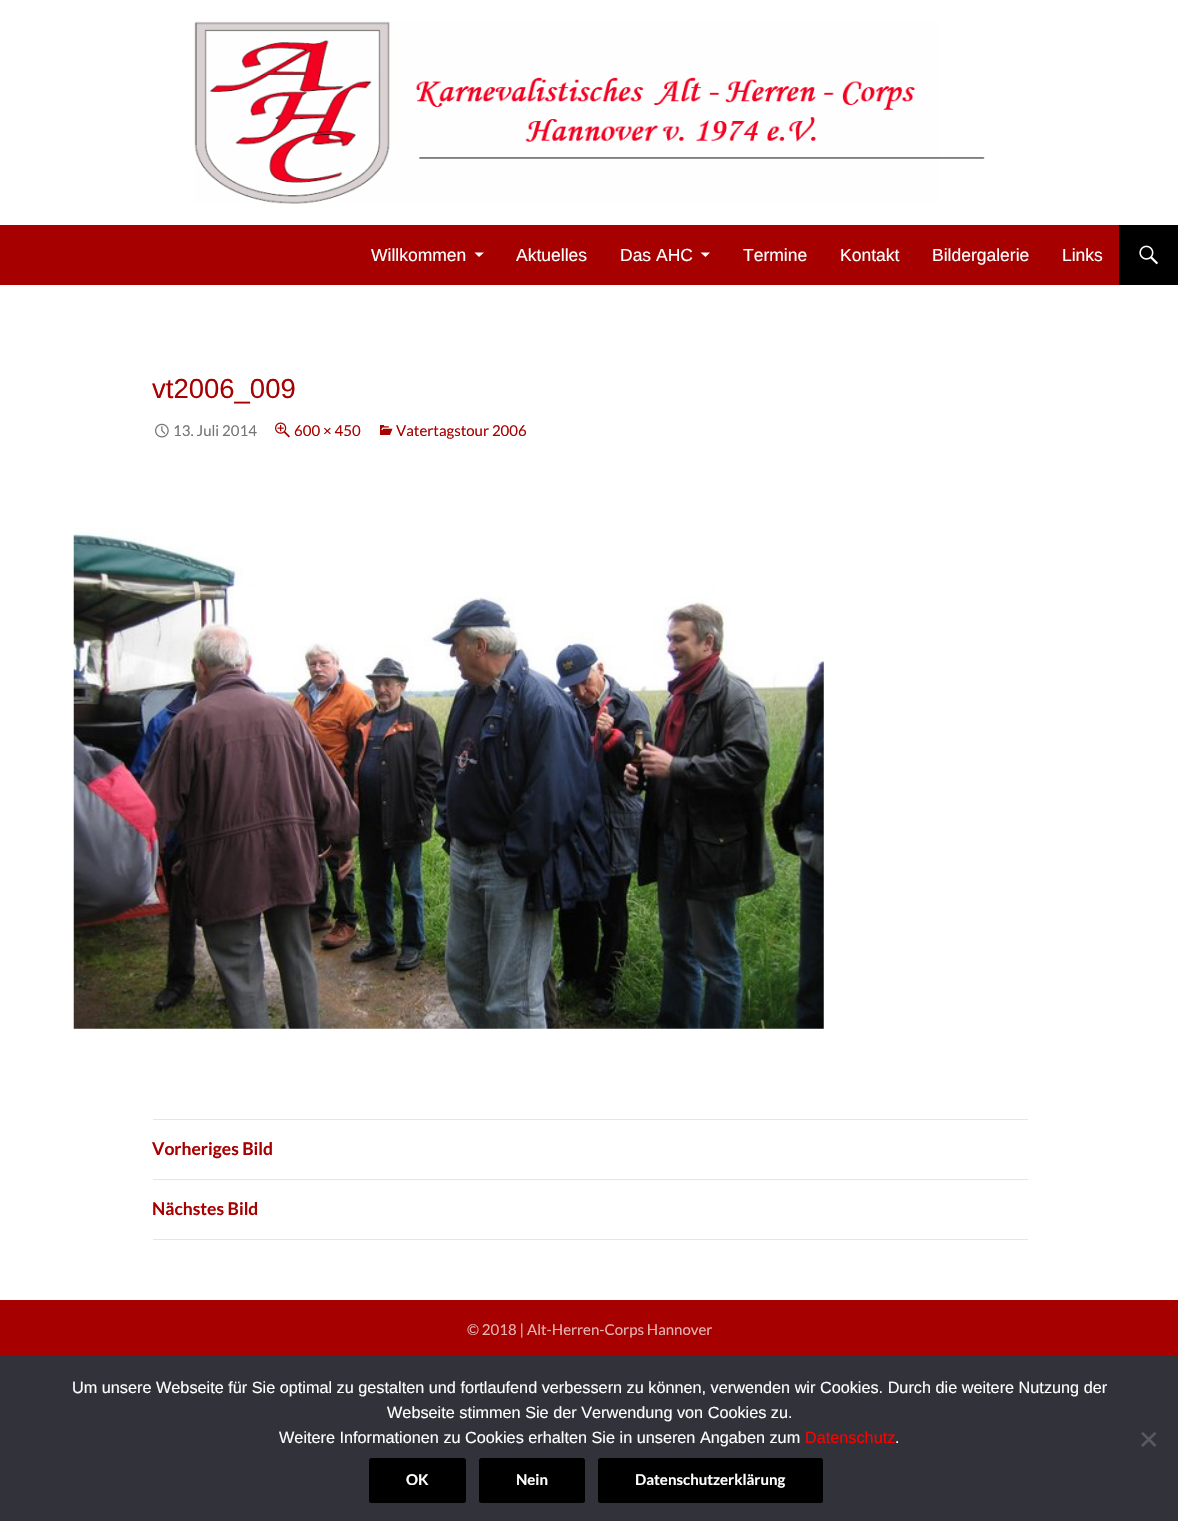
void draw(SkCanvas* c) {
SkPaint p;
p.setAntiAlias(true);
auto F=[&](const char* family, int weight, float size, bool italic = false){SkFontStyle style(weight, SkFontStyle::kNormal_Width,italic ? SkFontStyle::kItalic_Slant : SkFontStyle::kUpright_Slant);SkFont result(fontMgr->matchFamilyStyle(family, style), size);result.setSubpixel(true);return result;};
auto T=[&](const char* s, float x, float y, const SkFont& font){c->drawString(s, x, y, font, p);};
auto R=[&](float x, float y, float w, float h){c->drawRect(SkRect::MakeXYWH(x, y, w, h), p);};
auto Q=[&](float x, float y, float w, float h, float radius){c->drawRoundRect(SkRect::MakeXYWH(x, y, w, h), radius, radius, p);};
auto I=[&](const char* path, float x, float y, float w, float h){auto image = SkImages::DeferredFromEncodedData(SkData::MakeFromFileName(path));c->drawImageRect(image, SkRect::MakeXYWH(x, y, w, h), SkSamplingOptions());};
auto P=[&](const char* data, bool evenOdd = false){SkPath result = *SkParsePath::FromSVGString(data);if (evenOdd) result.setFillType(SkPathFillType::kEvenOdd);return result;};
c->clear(0xffffffff);
I("1.png",194,21,791,183);
p.setColor(0xffa70000);
R(0,225,1119,60);
auto f1 = F("Liberation Sans",400,17.5);
p.setColor(0xffffffff);
T("Willkommen",371,261,f1);
c->drawPath(P("M474.5 252.5l4.5 4.5l5-4.5z"),p);
T("Aktuelles",516,261,f1);
T("Das AHC",620,261,f1);
c->drawPath(P("M700.5 252.5l5 4.5l4.5-4.5z"),p);
T("Termine",743,261,f1);
T("Kontakt",840,261,f1);
T("Bildergalerie",932,261,f1);
T("Links",1062,261,f1);
p.setColor(0xff000000);
R(1119,225,59,60);
I("2.png",1139,245,19,20);
auto f2 = F("Liberation Sans",400,27.5);
p.setColor(0xffa70000);
T("vt2006_009",152,398,f2);
I("3.png",155,423,14,15);
auto f3 = F("Lato",400,15);
p.setColor(0xff767676);
T("13. Juli 2014",173,436,f3);
I("4.png",275,422,15,16);
p.setColor(0xffa70000);
T("600 × 450",294,436,f3);
I("5.png",380,425,13,10);
T("Vatertagstour 2006",396,436,f3);
I("6.png",73,527,751,502);
p.setColor(0xffe6e6e6);
R(153,1119,875,1);
R(153,1179,875,1);
auto f4 = F("Lato",700,17.5);
p.setColor(0xffa70000);
T("Vorheriges Bild",152,1155,f4);
p.setColor(0xffe6e6e6);
R(153,1239,875,1);
p.setColor(0xffa70000);
T("Nächstes Bild",152,1215,f4);
R(0,1300,1178,56);
p.setColor(0xffe5b3b3);
T("© 2018 | Alt-Herren-Corps Hannover",467,1335,f3);
p.setColor(0xff32323a);
R(0,1356,1178,165);
auto f5 = F("Liberation Sans",400,16.25);
p.setColor(0xffffffff);
T("Um unsere Webseite für Sie optimal zu gestalten und fortlaufend verbessern zu können, verwenden wir Cookies. Durch die weitere Nutzung der",72,1393,f5);
T("Webseite stimmen Sie der Verwendung von Cookies zu.",387,1418,f5);
T("Weitere Informationen zu Cookies erhalten Sie in unseren Angaben zum",279,1443,f5);
p.setColor(0xffff0000);
T("Datenschutz",805,1443,f5);
p.setColor(0xffffffff);
T(".",895,1443,f5);
p.setColor(0xff59595d);
c->drawPath(P("M1154.5 1432l2 1.5l-13.5 13.5l-2-2z"),p);
c->drawPath(P("M1141 1433.5l2-1.5l13.5 13l-2 2z"),p);
p.setColor(0xff000000);
Q(369,1458,97,45,2.5);
auto f6 = F("Lato",700,15);
p.setColor(0xffffffff);
T("OK",406,1485,f6);
p.setColor(0xff000000);
Q(479,1458,106,45,2.5);
p.setColor(0xffffffff);
T("Nein",516,1485,f6);
p.setColor(0xff000000);
Q(598,1458,225,45,2.5);
p.setColor(0xffffffff);
T("Datenschutzerklärung",635,1485,f6);
}
